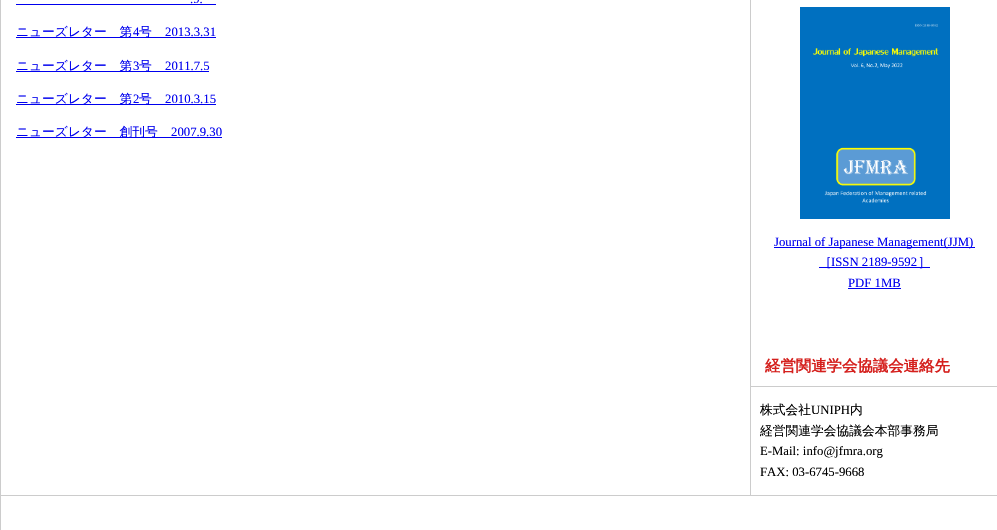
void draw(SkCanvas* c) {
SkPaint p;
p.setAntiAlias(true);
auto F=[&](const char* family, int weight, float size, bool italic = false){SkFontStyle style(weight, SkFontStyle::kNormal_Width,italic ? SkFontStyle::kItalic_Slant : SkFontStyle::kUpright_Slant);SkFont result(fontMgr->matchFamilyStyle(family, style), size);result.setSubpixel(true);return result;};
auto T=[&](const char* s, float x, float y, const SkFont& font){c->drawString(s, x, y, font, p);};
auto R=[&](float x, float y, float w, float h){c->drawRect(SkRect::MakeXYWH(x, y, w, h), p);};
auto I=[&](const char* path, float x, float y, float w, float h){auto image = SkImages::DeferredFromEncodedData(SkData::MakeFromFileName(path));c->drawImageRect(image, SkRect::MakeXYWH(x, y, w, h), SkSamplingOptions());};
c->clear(0xffffffff);
p.setColor(0xffcccccc);
R(0,0,1,530);
R(750,0,1,495);
auto f1 = F("Liberation Serif",400,12.75);
p.setColor(0xff0000ee);
T(".9.",190,3,f1);
R(16,4,200,1);
R(16,37,200,1);
auto f2 = F("WenQuanYi Zen Hei",500,12.75);
T("ニューズレター　第",16,36,f2);
T("4",133,36,f1);
T("号",139,36,f2);
T("2013.3.31",165,36,f1);
R(16,71,193,1);
T("ニューズレター　第",16,70,f2);
T("3",133,70,f1);
T("号",139,70,f2);
T("2011.7.5",165,70,f1);
R(16,104,200,1);
T("ニューズレター　第",16,103,f2);
T("2",133,103,f1);
T("号",139,103,f2);
T("2010.3.15",165,103,f1);
R(16,137,206,1);
T("ニューズレター　創刊号",16,136,f2);
T("2007.9.30",171,136,f1);
I("1.png",800,7,150,212);
R(774,247,201,1);
T("Journal of Japanese Management(JJM)",774,246,f1);
R(819,267,111,1);
T("［",819,266,f2);
T("ISSN 2189-9592",831,266,f1);
T("］",918,266,f2);
T("PDF 1MB",848,287,f1);
R(848,288,53,1);
p.setColor(0xffcccccc);
R(750,386,247,1);
auto f3 = F("WenQuanYi Zen Hei",700,15.4);
p.setColor(0xffd5201d);
T("経営関連学会協議会連絡先",765,371,f3);
p.setColor(0xff000000);
T("株式会社",760,414,f2);
T("UNIPH",811,414,f1);
T("内",850,414,f2);
T("経営関連学会協議会本部事務局",760,435,f2);
T("E-Mail: info@jfmra.org",760,455,f1);
T("FAX: 03-6745-9668",760,476,f1);
p.setColor(0xffcccccc);
R(1,495,996,1);
}
